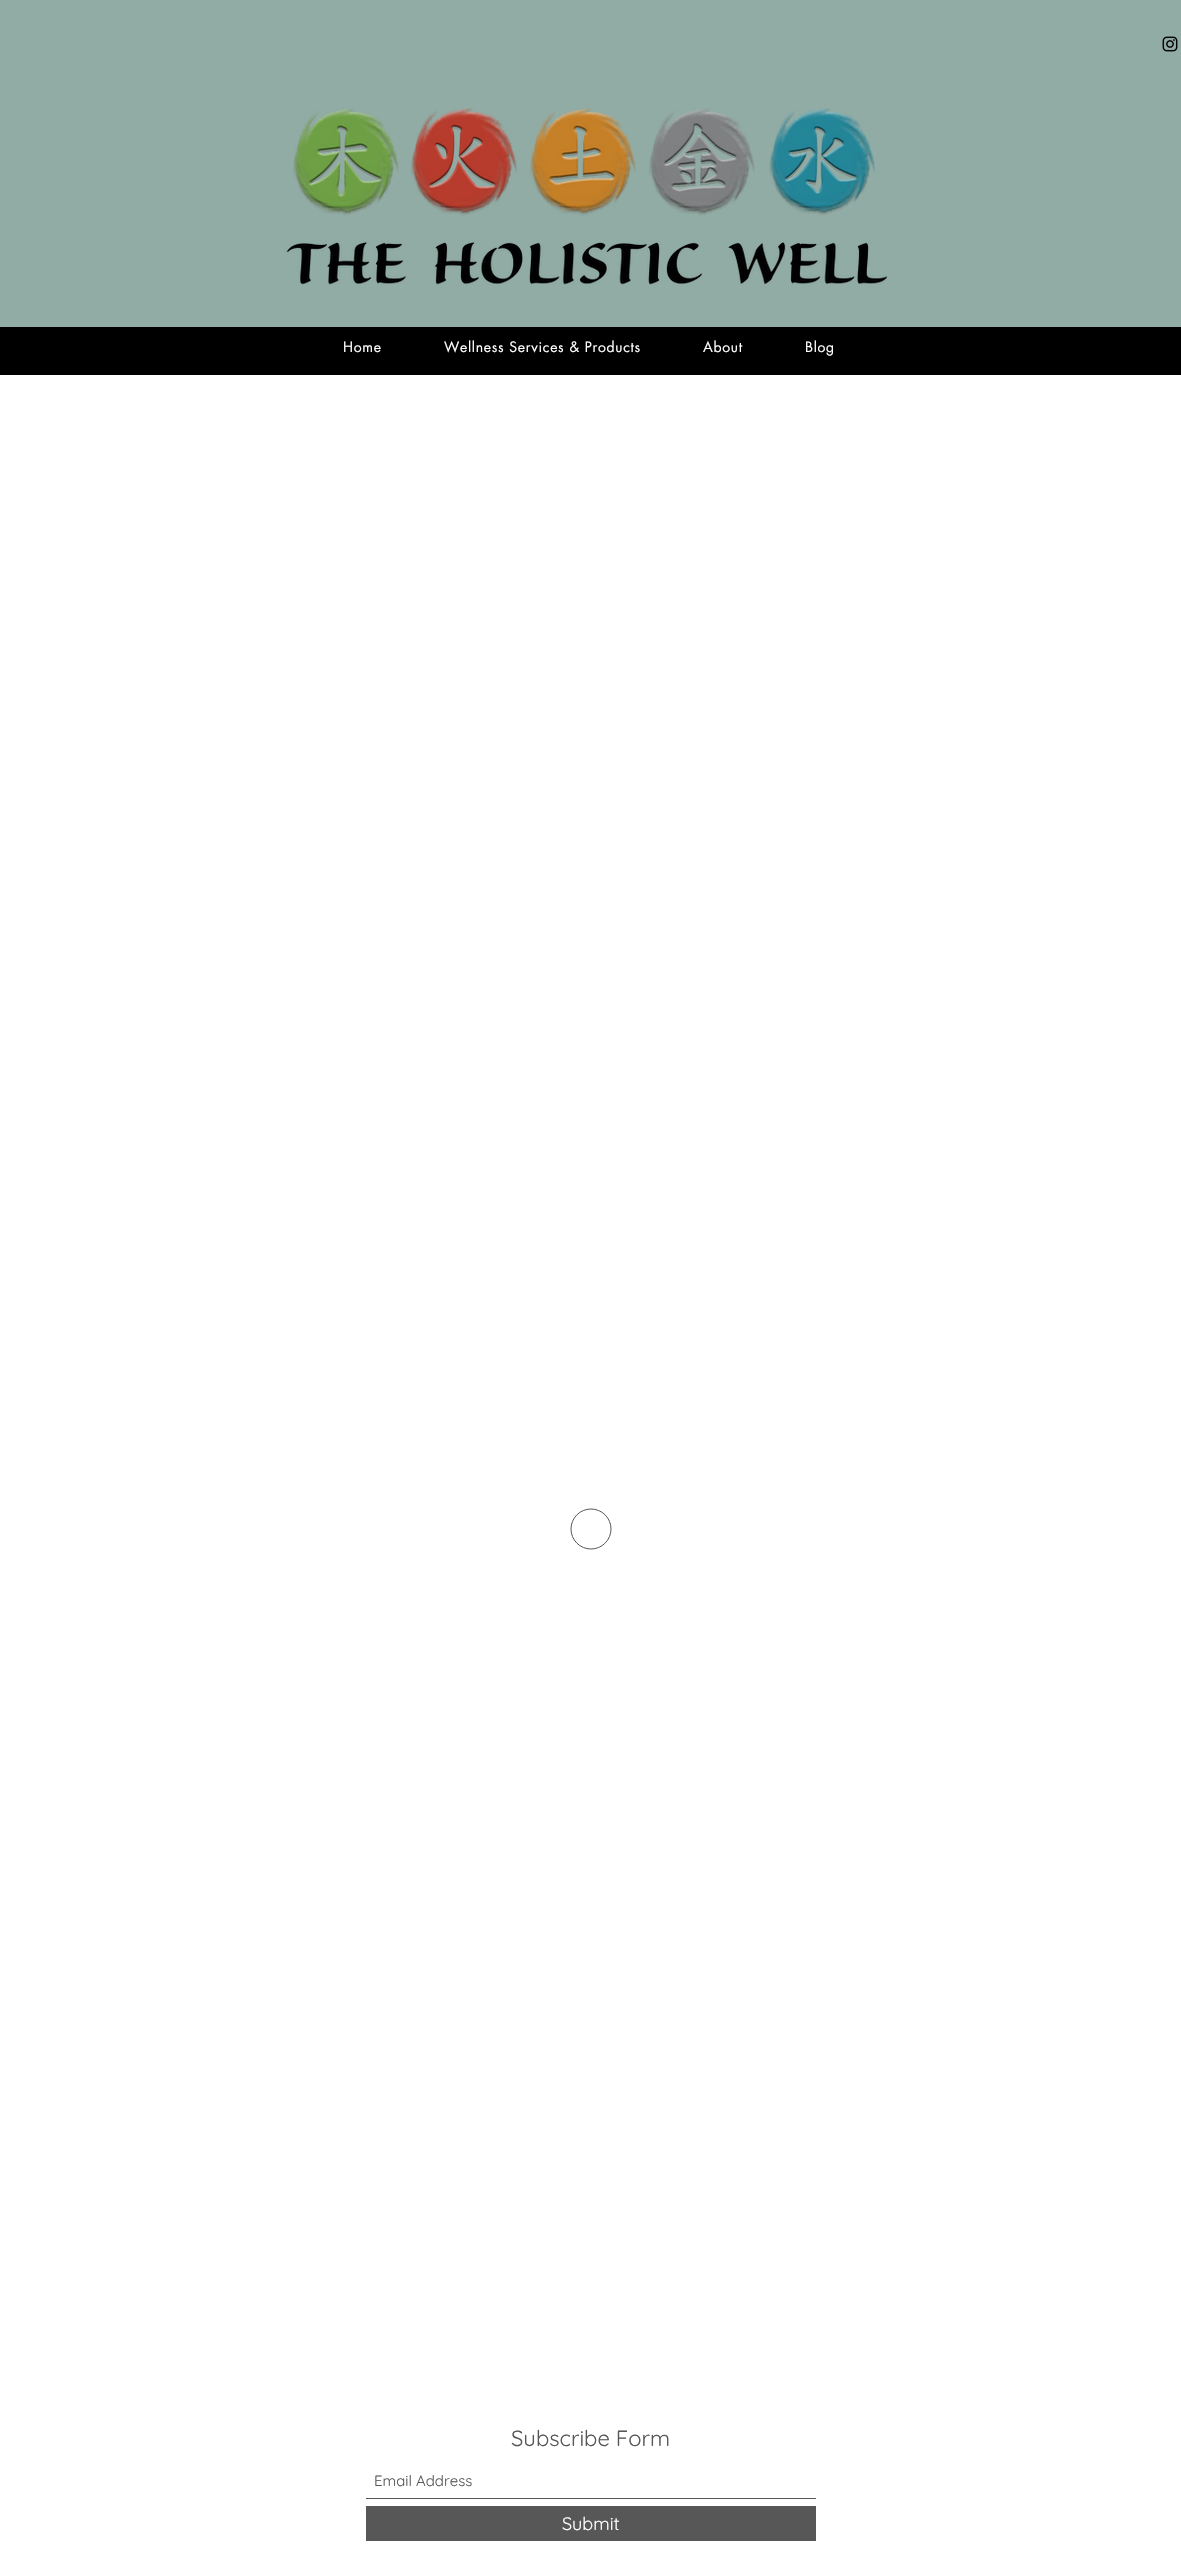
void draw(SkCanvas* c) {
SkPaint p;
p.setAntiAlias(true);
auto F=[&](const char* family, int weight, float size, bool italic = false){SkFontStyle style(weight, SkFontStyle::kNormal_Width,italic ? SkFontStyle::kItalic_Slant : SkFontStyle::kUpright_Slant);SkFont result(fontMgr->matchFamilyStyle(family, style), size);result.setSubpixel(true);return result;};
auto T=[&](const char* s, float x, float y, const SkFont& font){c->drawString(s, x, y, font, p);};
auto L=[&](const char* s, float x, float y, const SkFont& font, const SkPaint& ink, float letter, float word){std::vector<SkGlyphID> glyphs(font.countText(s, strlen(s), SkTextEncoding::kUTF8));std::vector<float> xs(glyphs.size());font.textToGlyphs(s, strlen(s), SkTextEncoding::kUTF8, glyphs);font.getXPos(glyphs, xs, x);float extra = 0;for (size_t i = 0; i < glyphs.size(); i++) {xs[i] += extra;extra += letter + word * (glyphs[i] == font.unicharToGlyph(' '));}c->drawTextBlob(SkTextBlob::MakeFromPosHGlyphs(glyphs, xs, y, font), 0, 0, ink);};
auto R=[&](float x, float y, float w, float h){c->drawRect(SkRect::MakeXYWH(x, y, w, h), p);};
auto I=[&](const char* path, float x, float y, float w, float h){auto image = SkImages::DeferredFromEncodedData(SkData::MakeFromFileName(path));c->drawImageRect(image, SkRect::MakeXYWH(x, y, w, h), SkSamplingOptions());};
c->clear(0xffffffff);
p.setColor(0xff91aba5);
R(0,0,1181,327);
I("1.png",286,108,602,177);
I("2.png",1162,36,16,16);
p.setColor(0xff000000);
R(0,327,1181,48);
auto f1 = F("futura",400,14);
p.setColor(0xffffffff);
L("Home",343,352,f1,p,.7,0);
L("Wellness Services & Products",444,352,f1,p,.7,0);
L("About",703,352,f1,p,.7,0);
L("Blog",805,352,f1,p,.7,0);
p.setStroke(true);
p.setStrokeWidth(1);
p.setColor(0xff575757);
c->drawCircle(591,1529,20,p);
auto f2 = F("Quicksand",400,22);
p.setStroke(false);
T("Subscribe Form",511,2446,f2);
R(366,2498,450,1);
auto f3 = F("Quicksand",400,15);
T("Email Address",374,2486,f3);
R(366,2506,450,35);
auto f4 = F("Quicksand",400,18);
p.setColor(0xffffffff);
T("Submit",562,2530,f4);
}
